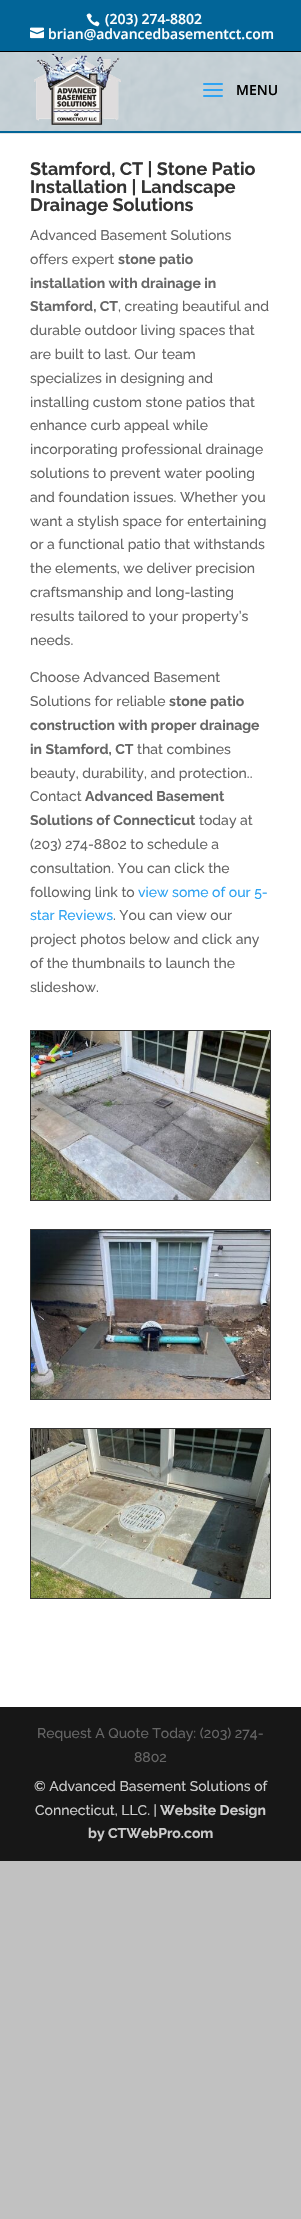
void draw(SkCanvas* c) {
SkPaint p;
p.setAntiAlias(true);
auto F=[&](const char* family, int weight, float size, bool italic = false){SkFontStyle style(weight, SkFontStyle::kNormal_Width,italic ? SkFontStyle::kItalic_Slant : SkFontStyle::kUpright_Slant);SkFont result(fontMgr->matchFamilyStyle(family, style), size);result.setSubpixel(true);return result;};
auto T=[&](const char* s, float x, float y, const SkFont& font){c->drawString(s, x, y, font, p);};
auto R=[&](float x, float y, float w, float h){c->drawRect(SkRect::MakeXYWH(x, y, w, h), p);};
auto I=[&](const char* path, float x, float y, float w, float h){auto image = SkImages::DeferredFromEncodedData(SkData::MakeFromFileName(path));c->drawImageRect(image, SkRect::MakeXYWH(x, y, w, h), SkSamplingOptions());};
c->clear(0xffc1c1c1);
p.setColor(0xff026598);
R(0,0,301,51);
p.setColor(0xff000000);
R(0,51,301,1);
I("1.png",86,13,14,14);
auto f1 = F("Open Sans",600,14);
p.setColor(0xffffffff);
T("(203) 274-8802",105,24,f1);
I("2.png",30,27,14,12);
T("brian@advancedbasementct.com",48,39,f1);
p.setColor(0xffe6e6e6);
R(0,133,301,1);
p.setColor(0xffffffff);
R(0,52,301,79);
p.setColor(0xff026598);
R(0,131,301,2);
I("3.png",0,52,301,79);
I("4.png",34,53,87,73);
I("5.png",203,83,20,14);
p.setColor(0xff000000);
T("MENU",236,95,f1);
p.setColor(0xffffffff);
R(0,134,301,1573);
auto f2 = F("Raleway",700,18);
p.setColor(0xff333333);
T("Stamford, CT | Stone Patio",30,175,f2);
T("Installation | Landscape",30,193,f2);
T("Drainage Solutions",30,211,f2);
auto f3 = F("Raleway",500,14);
p.setColor(0xff666666);
T("Advanced Basement Solutions",30,240,f3);
T("offers expert",30,264,f3);
auto f4 = F("Raleway",700,14);
T("stone patio",118,264,f4);
T("installation with drainage in",30,288,f4);
T("Stamford, CT",30,311,f4);
T(", creating beautiful and",118,311,f3);
T("durable outdoor living spaces that",30,335,f3);
T("are built to last. Our team",30,359,f3);
T("specializes in designing and",30,383,f3);
T("installing custom stone patios that",30,407,f3);
T("enhance curb appeal while",30,430,f3);
T("incorporating professional drainage",30,454,f3);
T("solutions to prevent water pooling",30,478,f3);
T("and foundation issues. Whether you",30,502,f3);
T("want a stylish space for entertaining",30,526,f3);
T("or a functional patio that withstands",30,549,f3);
T("the elements, we deliver precision",30,573,f3);
T("craftsmanship and long-lasting",30,597,f3);
T("results tailored to your property’s",30,621,f3);
T("needs.",30,645,f3);
T("Choose Advanced Basement",30,682,f3);
T("Solutions for reliable",30,706,f3);
T("stone patio",169,706,f4);
T("construction with proper drainage",30,730,f4);
T("in Stamford, CT",30,754,f4);
T("that combines",137,754,f3);
T("beauty, durability, and protection..",30,778,f3);
T("Contact",30,801,f3);
T("Advanced Basement",85,801,f4);
T("Solutions of Connecticut",30,825,f4);
T("today at",199,825,f3);
T("(203) 274-8802 to schedule a",30,849,f3);
T("consultation. You can click the",30,873,f3);
T("following link to",30,897,f3);
p.setColor(0xff2ea3f2);
T("view some of our 5-",138,897,f3);
T("star Reviews",30,920,f3);
p.setColor(0xff666666);
T(". You can view our",113,920,f3);
T("project photos below and click any",30,944,f3);
T("of the thumbnails to launch the",30,968,f3);
T("slideshow.",30,992,f3);
p.setStroke(true);
p.setStrokeWidth(1);
p.setColor(0xff333333);
c->drawRect(SkRect::MakeXYWH(30.5,1030.5,240,170),p);
I("6.png",31,1031,239,169);
c->drawRect(SkRect::MakeXYWH(30.5,1229.5,240,170),p);
I("7.png",31,1230,239,169);
c->drawRect(SkRect::MakeXYWH(30.5,1428.5,240,170),p);
I("8.png",31,1429,239,169);
p.setStroke(false);
p.setColor(0xff171717);
R(0,1707,301,154);
p.setColor(0xff666666);
T("Request A Quote Today: (203) 274-",37,1738,f3);
T("8802",134,1762,f3);
p.setColor(0xffcccccc);
T("© Advanced Basement Solutions of",34,1791,f3);
T("Connecticut, LLC. |",35,1815,f3);
T("Website Design",160,1815,f4);
T("by CTWebPro.com",88,1838,f4);
}
